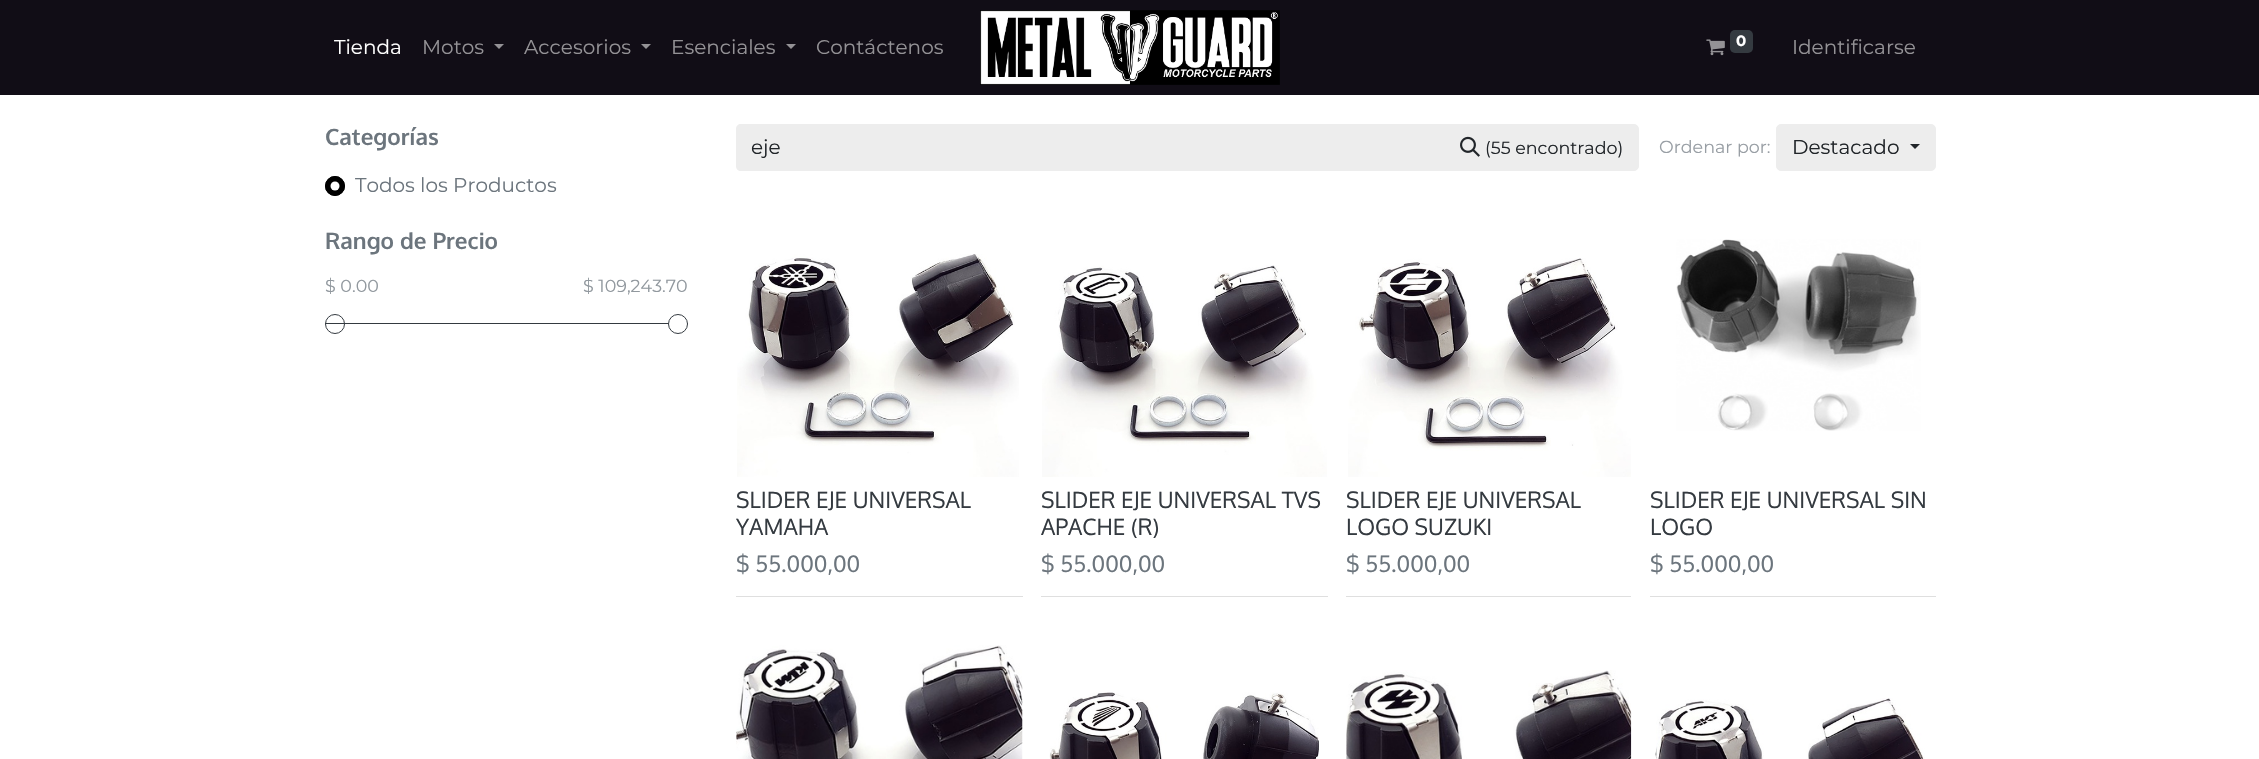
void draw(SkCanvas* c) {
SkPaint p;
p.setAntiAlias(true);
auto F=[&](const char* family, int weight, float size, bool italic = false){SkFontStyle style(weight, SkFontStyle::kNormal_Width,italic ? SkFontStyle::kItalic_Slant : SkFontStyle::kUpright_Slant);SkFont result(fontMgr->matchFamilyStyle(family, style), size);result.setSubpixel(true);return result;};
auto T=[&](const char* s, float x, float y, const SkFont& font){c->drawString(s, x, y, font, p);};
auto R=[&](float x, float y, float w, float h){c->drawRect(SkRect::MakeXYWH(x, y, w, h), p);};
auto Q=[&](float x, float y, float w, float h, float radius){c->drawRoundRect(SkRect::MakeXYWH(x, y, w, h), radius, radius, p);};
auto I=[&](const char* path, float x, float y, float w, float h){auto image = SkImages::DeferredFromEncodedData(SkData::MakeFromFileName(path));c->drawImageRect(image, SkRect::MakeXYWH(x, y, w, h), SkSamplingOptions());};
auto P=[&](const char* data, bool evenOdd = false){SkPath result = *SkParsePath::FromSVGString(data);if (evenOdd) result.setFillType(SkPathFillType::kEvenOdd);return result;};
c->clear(0xffffffff);
p.setColor(0xff110d16);
R(0,0,2259,95);
auto f1 = F("Montserrat",400,20);
p.setColor(0xffffffff);
T("Tienda",334,54,f1);
p.setColor(0xff949296);
T("Motos",422,54,f1);
c->drawPath(P("M494 44h10l-5 5z"),p);
T("Accesorios",524,54,f1);
c->drawPath(P("M641 44h10l-5 5z"),p);
T("Esenciales",671,54,f1);
c->drawPath(P("M786 44h10l-5 5z"),p);
T("Contáctenos",816,54,f1);
I("1.png",980,10,300,75);
I("2.png",1706,39,19,17);
p.setColor(0xff343a40);
Q(1730,30,23,23,5);
auto f2 = F("Montserrat",700,15);
p.setColor(0xffffffff);
T("0",1736,46,f2);
p.setColor(0xff949296);
T("Identificarse",1792,54,f1);
auto f3 = F("Oxygen",700,22.5);
p.setColor(0xff6c757d);
T("Categorías",325,145,f3);
p.setColor(0xff000000);
c->drawCircle(335,186,10,p);
p.setColor(0xffffffff);
c->drawCircle(335,186,4.5,p);
p.setStroke(true);
p.setStrokeWidth(1);
p.setColor(0xff000000);
c->drawCircle(335,186,9.5,p);
p.setStroke(false);
p.setColor(0xff6c757d);
T("Todos los Productos",355,192,f1);
T("Rango de Precio",325,249,f3);
auto f4 = F("Montserrat",400,17.5);
p.setColor(0xff91989e);
T("$ 0.00",325,292,f4);
T("$ 109,243.70",583,292,f4);
p.setStroke(true);
p.setColor(0xff343a40);
c->drawCircle(335,324,9.5,p);
p.setStroke(false);
Q(325,323,363,1,.5);
p.setColor(0xffffffff);
c->drawCircle(678,324,9.5,p);
p.setStroke(true);
p.setColor(0xff343a40);
c->drawCircle(678,324,9.5,p);
p.setStroke(false);
p.setColor(0xffededed);
c->drawPath(P("M741 124h704v47h-704c-3 0-5-2-5-5v-37c0-3 2-5 5-5z"),p);
p.setColor(0xff212529);
T("eje",751,154,f1);
p.setColor(0xffededed);
c->drawPath(P("M1444.5 124.5h189.5c2.5 0 4.5 2 4.5 4.5v37c0 2.5-2 4.5-4.5 4.5h-189.5z"),p);
p.setStroke(true);
c->drawPath(P("M1444.5 124.5h189.5c2.5 0 4.5 2 4.5 4.5v37c0 2.5-2 4.5-4.5 4.5h-189.5z"),p);
I("3.png",1460,136,20,21);
p.setStroke(false);
p.setColor(0xff212529);
T("(55 encontrado)",1485,154,f4);
p.setColor(0xff989ea4);
T("Ordenar por:",1659,153,f4);
p.setColor(0xffededed);
c->drawRoundRect(SkRect::MakeXYWH(1776.5,124.5,159,46),4.5,4.5,p);
p.setStroke(true);
c->drawRoundRect(SkRect::MakeXYWH(1776.5,124.5,159,46),4.5,4.5,p);
p.setStroke(false);
p.setColor(0xff212529);
T("Destacado",1792,154,f1);
c->drawPath(P("M1910 144h10l-5 5z"),p);
p.setColor(0xffdfdfdf);
R(736,596,287,1);
I("4.png",737,254,282,223);
auto f5 = F("Oxygen",400,22.5);
p.setColor(0xff343a40);
T("SLIDER EJE UNIVERSAL",736,508,f5);
T("YAMAHA",736,535,f5);
p.setColor(0xff6c757d);
T("$ 55.000,00",736,572,f5);
p.setColor(0xffdfdfdf);
R(1041,596,287,1);
I("5.png",1042,265,285,212);
p.setColor(0xff343a40);
T("SLIDER EJE UNIVERSAL TVS",1041,508,f5);
T("APACHE (R)",1041,535,f5);
p.setColor(0xff6c757d);
T("$ 55.000,00",1041,572,f5);
p.setColor(0xffdfdfdf);
R(1346,596,285,1);
I("6.png",1348,258,283,219);
p.setColor(0xff343a40);
T("SLIDER EJE UNIVERSAL",1346,508,f5);
T("LOGO SUZUKI",1346,535,f5);
p.setColor(0xff6c757d);
T("$ 55.000,00",1346,572,f5);
p.setColor(0xffdfdfdf);
R(1650,596,286,1);
I("7.png",1676,239,245,192);
p.setColor(0xff343a40);
T("SLIDER EJE UNIVERSAL SIN",1650,508,f5);
T("LOGO",1650,535,f5);
p.setColor(0xff6c757d);
T("$ 55.000,00",1650,572,f5);
I("8.png",736,645,287,114);
I("9.png",1049,692,270,67);
I("10.png",1346,670,286,89);
I("11.png",1655,698,270,61);
}
